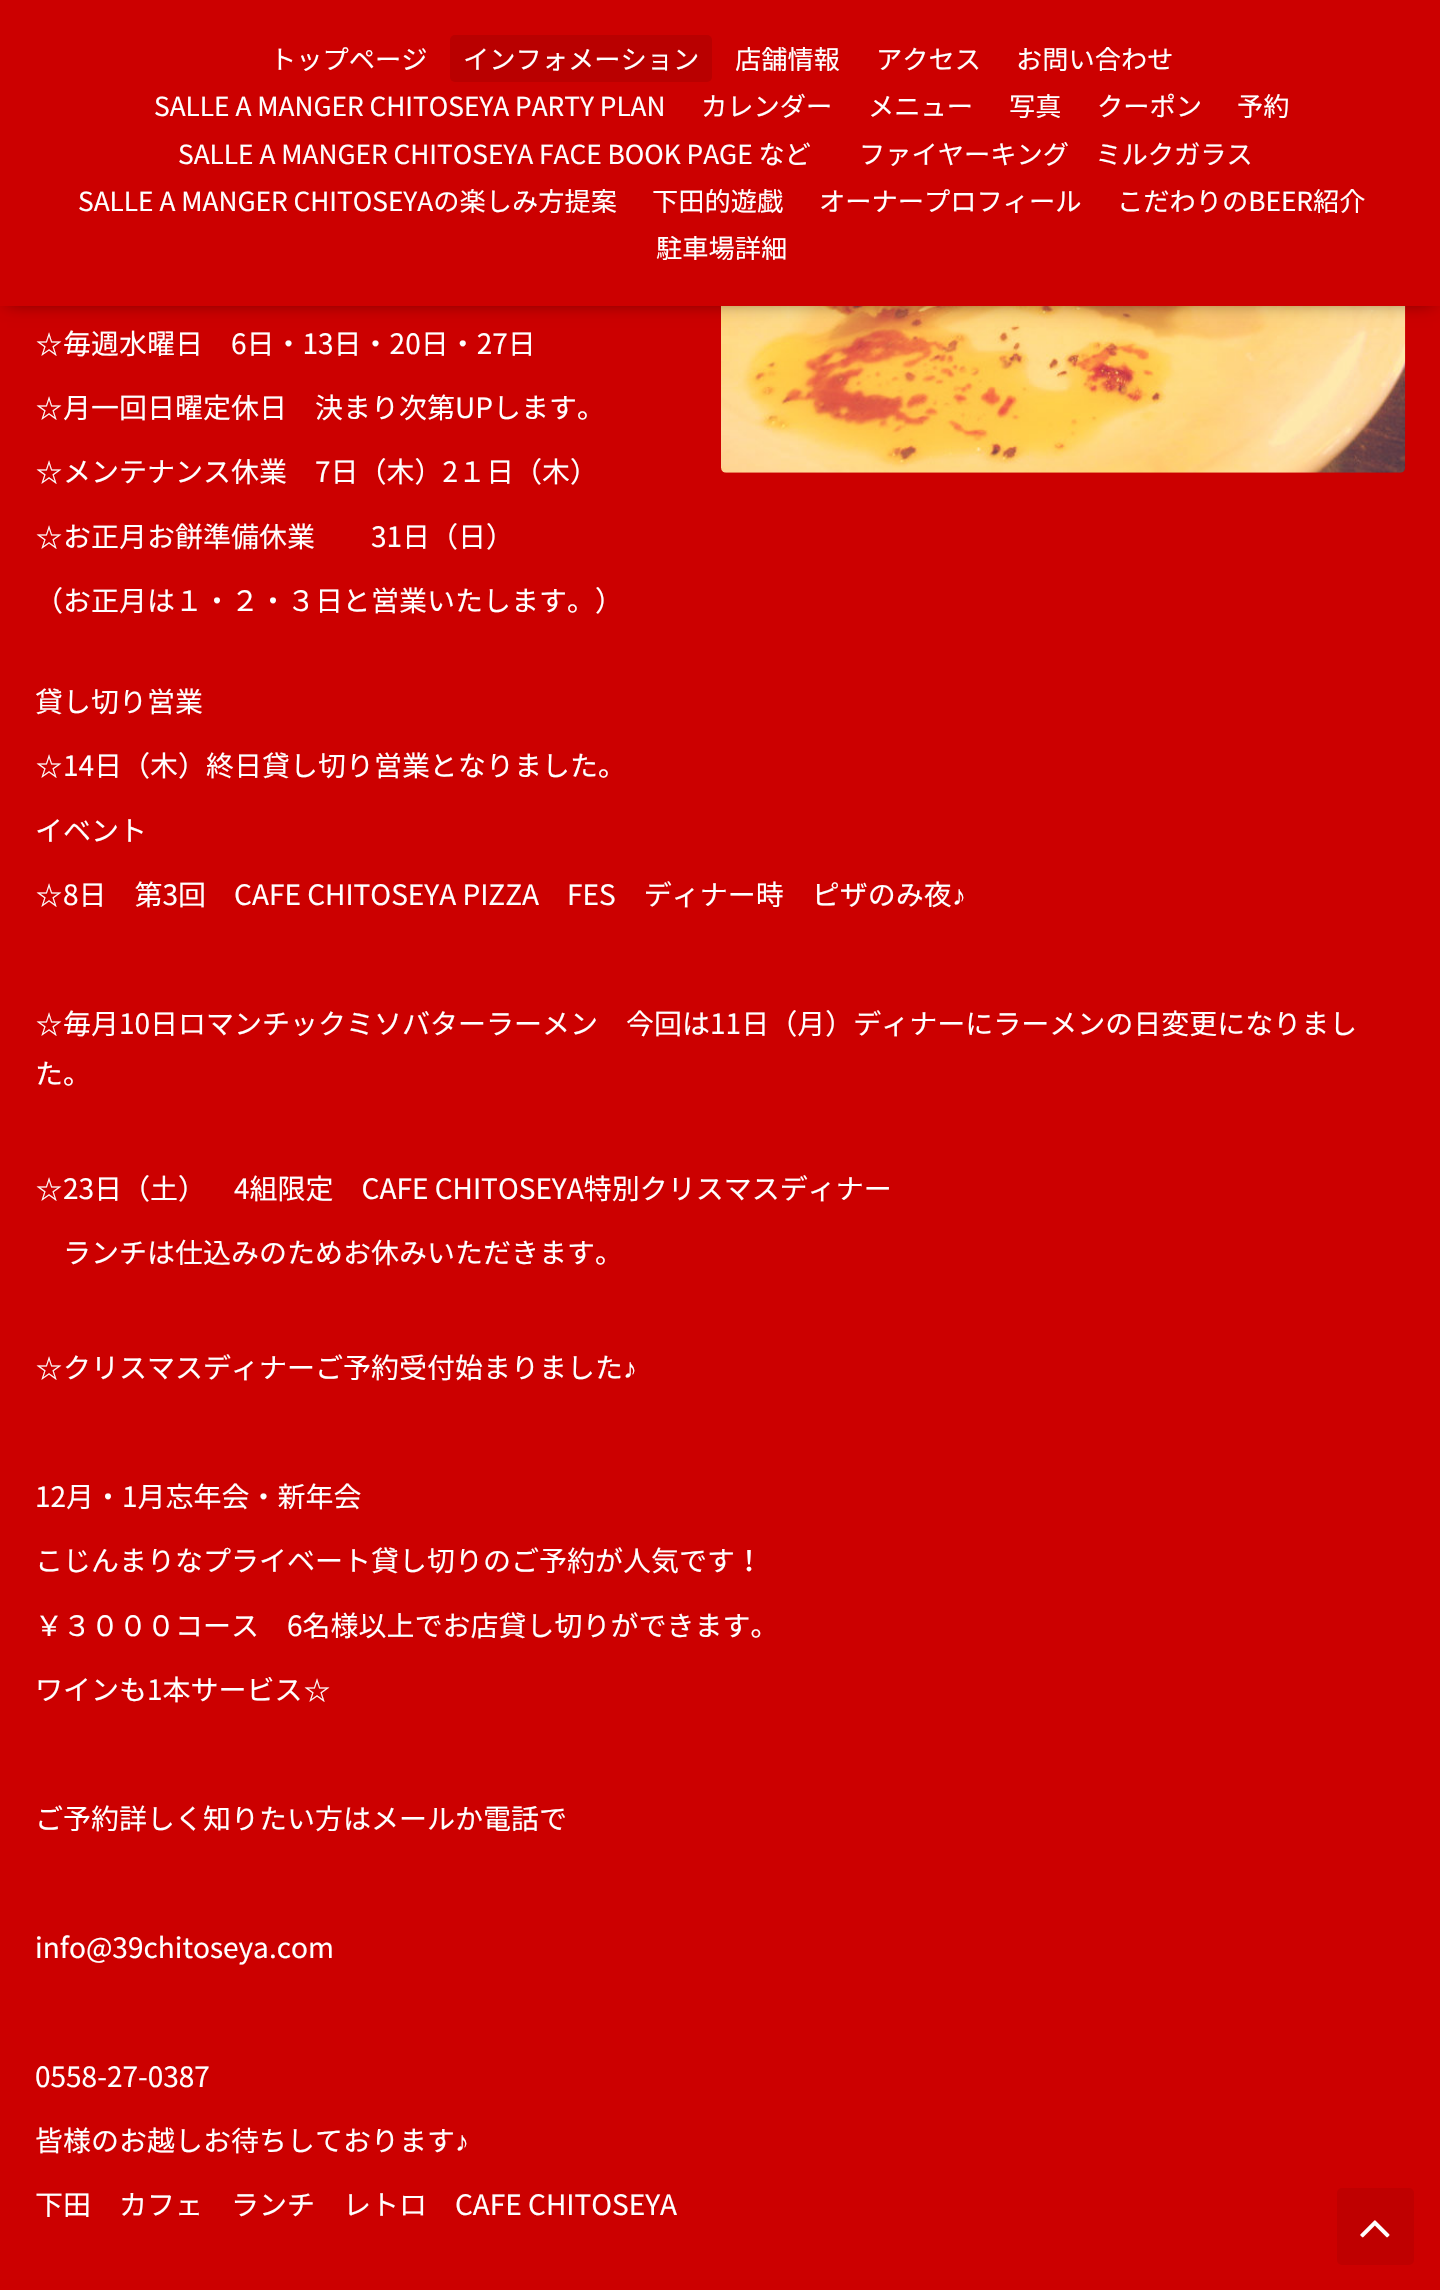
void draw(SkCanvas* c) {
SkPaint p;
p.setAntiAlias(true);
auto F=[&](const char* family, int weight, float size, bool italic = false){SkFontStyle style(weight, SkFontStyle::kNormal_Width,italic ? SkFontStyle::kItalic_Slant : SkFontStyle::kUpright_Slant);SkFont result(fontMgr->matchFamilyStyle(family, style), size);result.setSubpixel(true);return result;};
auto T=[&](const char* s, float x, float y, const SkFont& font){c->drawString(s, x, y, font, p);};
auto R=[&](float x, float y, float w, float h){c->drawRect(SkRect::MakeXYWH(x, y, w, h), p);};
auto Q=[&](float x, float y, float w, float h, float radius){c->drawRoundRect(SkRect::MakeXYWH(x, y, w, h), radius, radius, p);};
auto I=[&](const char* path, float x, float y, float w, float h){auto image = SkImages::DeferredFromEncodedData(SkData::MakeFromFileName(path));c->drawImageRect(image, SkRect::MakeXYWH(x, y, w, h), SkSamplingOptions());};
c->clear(0xffcc0000);
I("1.png",721,306,685,167);
p.setColor(0x99000000);
p.setMaskFilter(SkMaskFilter::MakeBlur(kNormal_SkBlurStyle, 9));
c->drawRect(SkRect::MakeXYWH(7,9,1426,292),p);
p.setMaskFilter(nullptr);
p.setColor(0xffcc0000);
R(0,0,1440,306);
auto f1 = F("Noto Sans JP",400,26.25);
p.setColor(0xffffffff);
T("トップページ",270,69,f1);
p.setColor(0xffb90000);
Q(450,35,262,47,5);
p.setColor(0xffffffff);
T("インフォメーション",463,69,f1);
T("店舗情報",735,69,f1);
T("アクセス",876,69,f1);
T("お問い合わせ",1016,69,f1);
T("SALLE A MANGER CHITOSEYA PARTY PLAN",154,116,f1);
T("カレンダー",701,116,f1);
T("メニュー",868,116,f1);
T("写真",1009,116,f1);
T("クーポン",1097,116,f1);
T("予約",1237,116,f1);
T("SALLE A MANGER CHITOSEYA FACE BOOK PAGE など",178,164,f1);
T("ファイヤーキング　ミルクガラス",859,164,f1);
T("SALLE A MANGER CHITOSEYAの楽しみ方提案",78,211,f1);
T("下田的遊戯",652,211,f1);
T("オーナープロフィール",819,211,f1);
T("こだわりのBEER紹介",1117,211,f1);
T("駐車場詳細",656,258,f1);
auto f2 = F("WenQuanYi Zen Hei",500,28);
T("☆",35,354,f2);
auto f3 = F("Noto Sans JP",400,28);
T("毎週水曜日　6日・13日・20日・27日",63,354,f3);
T("☆",35,418,f2);
T("月一回日曜定休日　決まり次第UPします。",63,418,f3);
T("☆",35,482,f2);
T("メンテナンス休業　7日（木）2１日（木）",63,482,f3);
T("☆",35,547,f2);
T("お正月お餅準備休業　　31日（日）",63,547,f3);
T("（お正月は１・２・３日と営業いたします。）",35,611,f3);
T("貸し切り営業",35,712,f3);
T("☆",35,776,f2);
T("14日（木）終日貸し切り営業となりました。",63,776,f3);
T("イベント",35,841,f3);
T("☆",35,905,f2);
T("8日　第3回　CAFE CHITOSEYA PIZZA　FES　ディナー時　ピザのみ夜",63,905,f3);
auto f4 = F("Liberation Serif",400,28);
T("♪",952,905,f4);
T("☆",35,1034,f2);
T("毎月10日ロマンチックミソバターラーメン　今回は11日（月）ディナーにラーメンの日変更になりまし",63,1034,f3);
T("た。",35,1084,f3);
T("☆",35,1199,f2);
T("23日（土）　4組限定　CAFE CHITOSEYA特別クリスマスディナー",63,1199,f3);
T("ランチは仕込みのためお休みいただきます。",63,1263,f3);
T("☆",35,1378,f2);
T("クリスマスディナーご予約受付始まりました",63,1378,f3);
T("♪",623,1378,f4);
T("12月・1月忘年会・新年会",35,1507,f3);
T("こじんまりなプライベート貸し切りのご予約が人気です！",35,1571,f3);
T("￥３０００コース　6名様以上でお店貸し切りができます。",35,1636,f3);
T("ワインも1本サービス",35,1700,f3);
T("☆",303,1700,f2);
T("ご予約詳しく知りたい方はメールか電話で",35,1829,f3);
T("info@39chitoseya.com",35,1958,f3);
T("0558-27-0387",35,2087,f3);
T("皆様のお越しお待ちしております",35,2151,f3);
T("♪",455,2151,f4);
T("下田　カフェ　ランチ　レトロ　CAFE CHITOSEYA",35,2215,f3);
p.setColor(0xffbf0000);
Q(1337,2188,77,77,5);
I("2.png",1360,2220,30,18);
}
